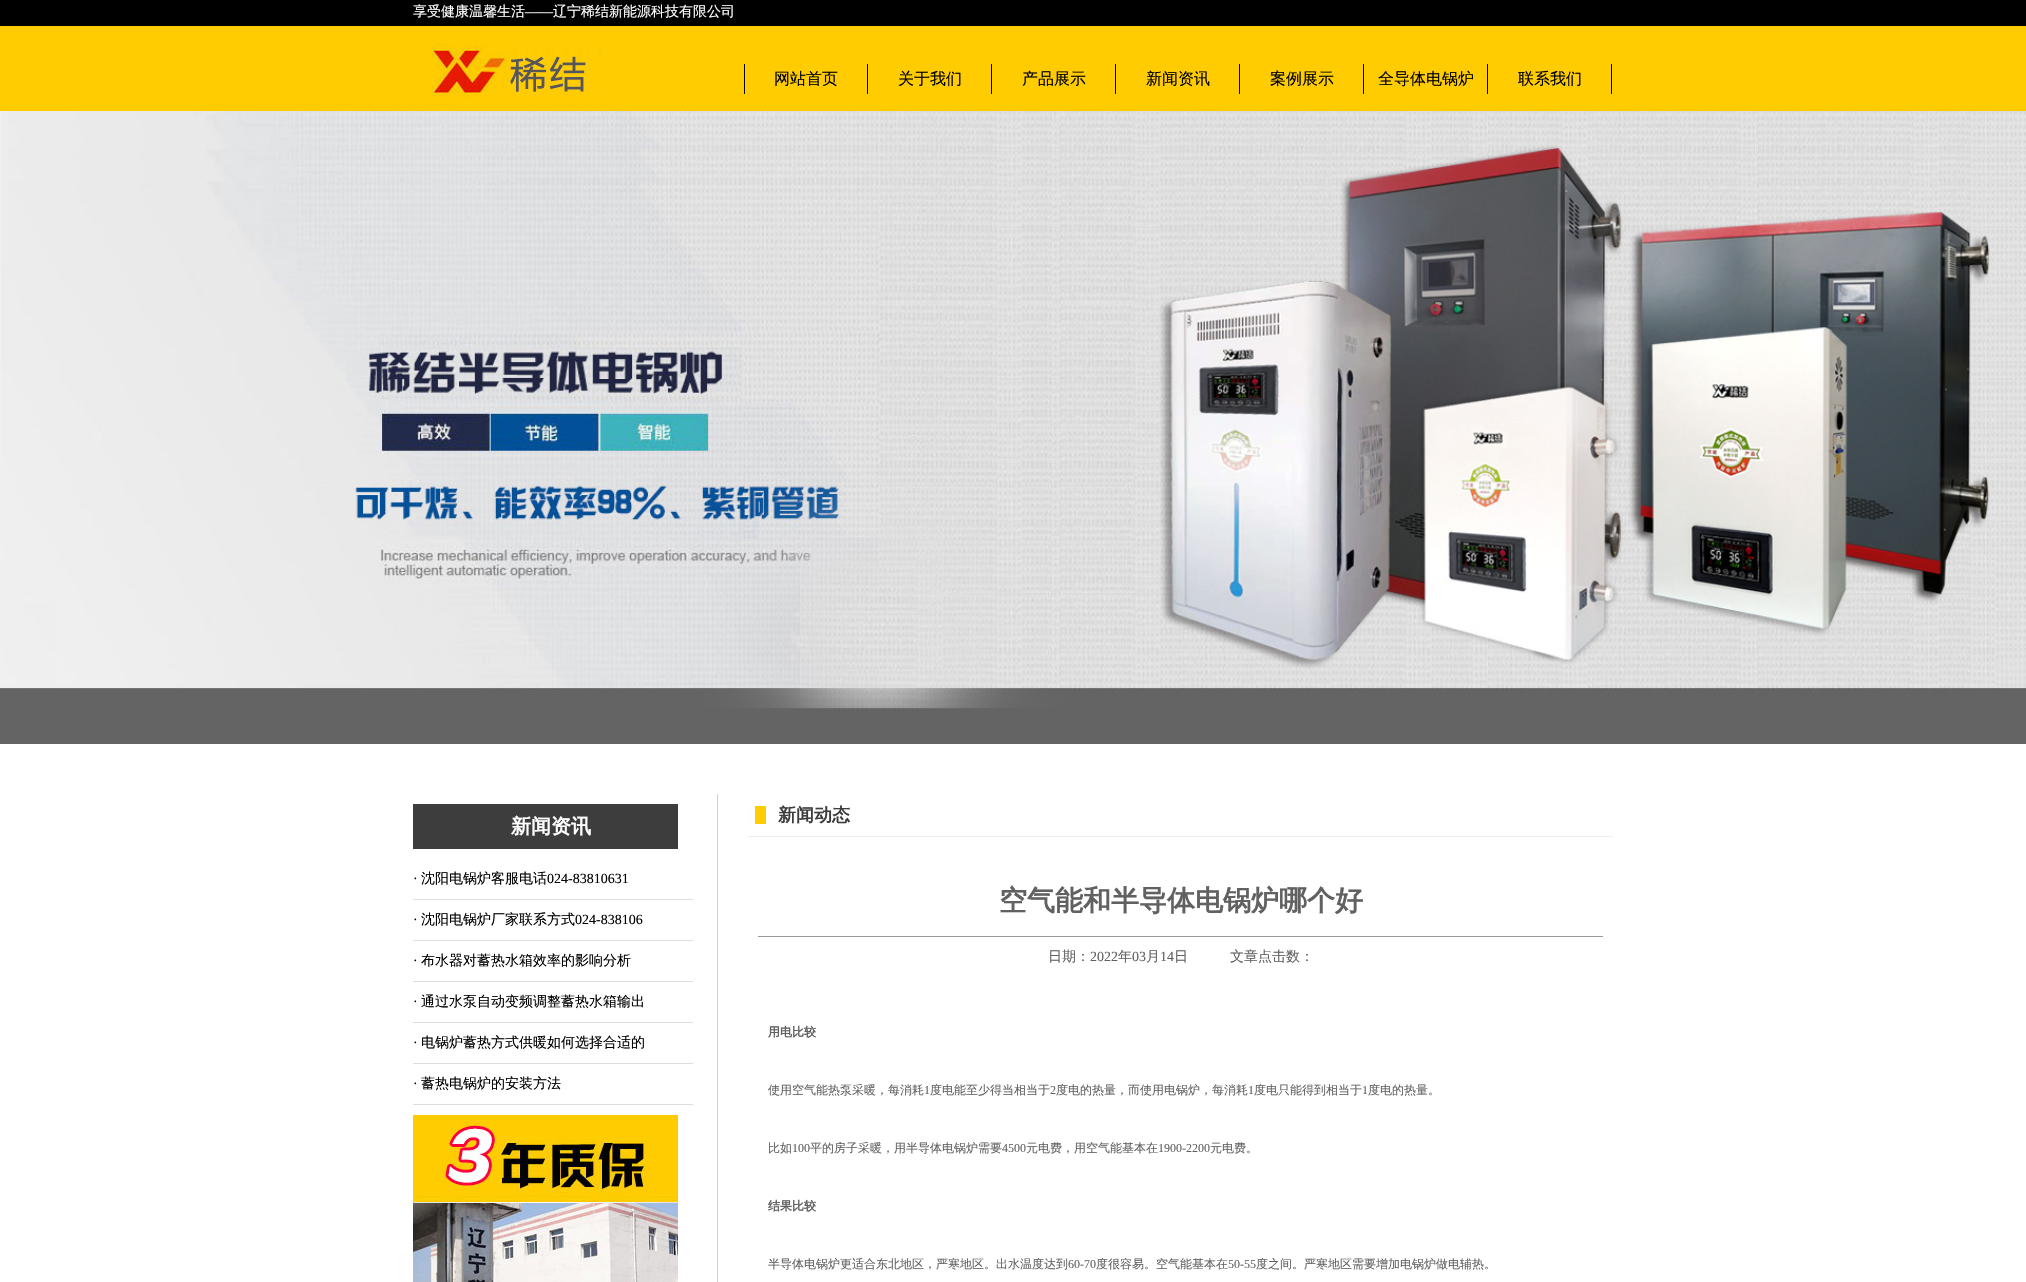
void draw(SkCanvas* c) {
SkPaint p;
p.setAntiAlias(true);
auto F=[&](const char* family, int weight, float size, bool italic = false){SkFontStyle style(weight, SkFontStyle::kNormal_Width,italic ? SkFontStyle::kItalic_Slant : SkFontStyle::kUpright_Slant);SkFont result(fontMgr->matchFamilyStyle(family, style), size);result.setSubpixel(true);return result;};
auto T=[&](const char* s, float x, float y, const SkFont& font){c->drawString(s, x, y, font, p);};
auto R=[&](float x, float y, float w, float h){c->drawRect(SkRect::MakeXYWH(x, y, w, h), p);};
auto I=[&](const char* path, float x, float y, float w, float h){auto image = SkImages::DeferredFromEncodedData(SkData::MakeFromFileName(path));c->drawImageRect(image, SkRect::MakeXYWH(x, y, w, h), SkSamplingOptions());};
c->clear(0xffffffff);
I("1.png",0,0,2026,111);
auto f1 = F("WenQuanYi Zen Hei",500,14);
p.setColor(0xffffffff);
T("享受健康温馨生活",413,16,f1);
auto f2 = F("Liberation Serif",400,14);
T("——",525,16,f2);
T("辽宁稀结新能源科技有限公司",553,16,f1);
I("2.png",432,44,169,53);
p.setColor(0xff000000);
R(867,64,1,30);
R(744,64,1,30);
auto f3 = F("WenQuanYi Zen Hei",500,16);
T("网站首页",774,84,f3);
R(991,64,1,30);
T("关于我们",898,84,f3);
R(1115,64,1,30);
T("产品展示",1022,84,f3);
R(1239,64,1,30);
T("新闻资讯",1146,84,f3);
R(1363,64,1,30);
T("案例展示",1270,84,f3);
R(1487,64,1,30);
T("全导体电锅炉",1378,84,f3);
R(1611,64,1,30);
T("联系我们",1518,84,f3);
I("3.png",0,111,2026,633);
p.setColor(0xff3d3d3d);
R(413,804,265,45);
auto f4 = F("WenQuanYi Zen Hei",700,20);
p.setColor(0xffffffff);
T("新闻资讯",511,833,f4);
p.setColor(0xffdddddd);
R(413,899,280,1);
p.setColor(0xff000000);
T("·",413,883,f2);
T("沈阳电锅炉客服电话",421,883,f1);
T("024-83810631",547,883,f2);
p.setColor(0xffdddddd);
R(413,940,280,1);
p.setColor(0xff000000);
T("·",413,924,f2);
T("沈阳电锅炉厂家联系方式",421,924,f1);
T("024-838106",575,924,f2);
p.setColor(0xffdddddd);
R(413,981,280,1);
p.setColor(0xff000000);
T("·",413,965,f2);
T("布水器对蓄热水箱效率的影响分析",421,965,f1);
p.setColor(0xffdddddd);
R(413,1022,280,1);
p.setColor(0xff000000);
T("·",413,1006,f2);
T("通过水泵自动变频调整蓄热水箱输出",421,1006,f1);
p.setColor(0xffdddddd);
R(413,1063,280,1);
p.setColor(0xff000000);
T("·",413,1047,f2);
T("电锅炉蓄热方式供暖如何选择合适的",421,1047,f1);
p.setColor(0xffdddddd);
R(413,1104,280,1);
p.setColor(0xff000000);
T("·",413,1088,f2);
T("蓄热电锅炉的安装方法",421,1088,f1);
I("4.png",413,1115,265,167);
p.setColor(0xffd1d1d1);
R(717,794,1,488);
I("5.png",749,806,22,18);
p.setColor(0xffefedee);
R(748,836,865,1);
auto f5 = F("WenQuanYi Zen Hei",700,18);
p.setColor(0xff3d3d3d);
T("新闻动态",778,821,f5);
p.setColor(0xff999999);
R(758,936,845,1);
auto f6 = F("WenQuanYi Zen Hei",700,28);
p.setColor(0xff616161);
T("空气能和半导体电锅炉哪个好",999,910,f6);
T("日期：",1048,961,f1);
T("2022",1090,961,f2);
T("年",1118,961,f1);
T("03",1132,961,f2);
T("月",1146,961,f1);
T("14",1160,961,f2);
T("日",1174,961,f1);
T("文章点击数：",1230,961,f1);
auto f7 = F("WenQuanYi Zen Hei",700,12);
T("用电比较",768,1036,f7);
auto f8 = F("WenQuanYi Zen Hei",500,12);
T("使用空气能热泵采暖，每消耗",768,1094,f8);
auto f9 = F("Liberation Serif",400,12);
T("1",924,1094,f9);
T("度电能至少得当相当于",930,1094,f8);
T("2",1050,1094,f9);
T("度电的热量，而使用电锅炉，每消耗",1056,1094,f8);
T("1",1248,1094,f9);
T("度电只能得到相当于",1254,1094,f8);
T("1",1362,1094,f9);
T("度电的热量。",1368,1094,f8);
T("比如",768,1152,f8);
T("100",792,1152,f9);
T("平的房子采暖，用半导体电锅炉需要",810,1152,f8);
T("4500",1002,1152,f9);
T("元电费，用空气能基本在",1026,1152,f8);
T("1900-2200",1158,1152,f9);
T("元电费。",1210,1152,f8);
T("结果比较",768,1210,f7);
T("半导体电锅炉更适合东北地区，严寒地区。出水温度达到",768,1268,f8);
T("60-70",1068,1268,f9);
T("度很容易。空气能基本在",1096,1268,f8);
T("50-55",1228,1268,f9);
T("度之间。严寒地区需要增加电锅炉做电辅热。",1256,1268,f8);
}
